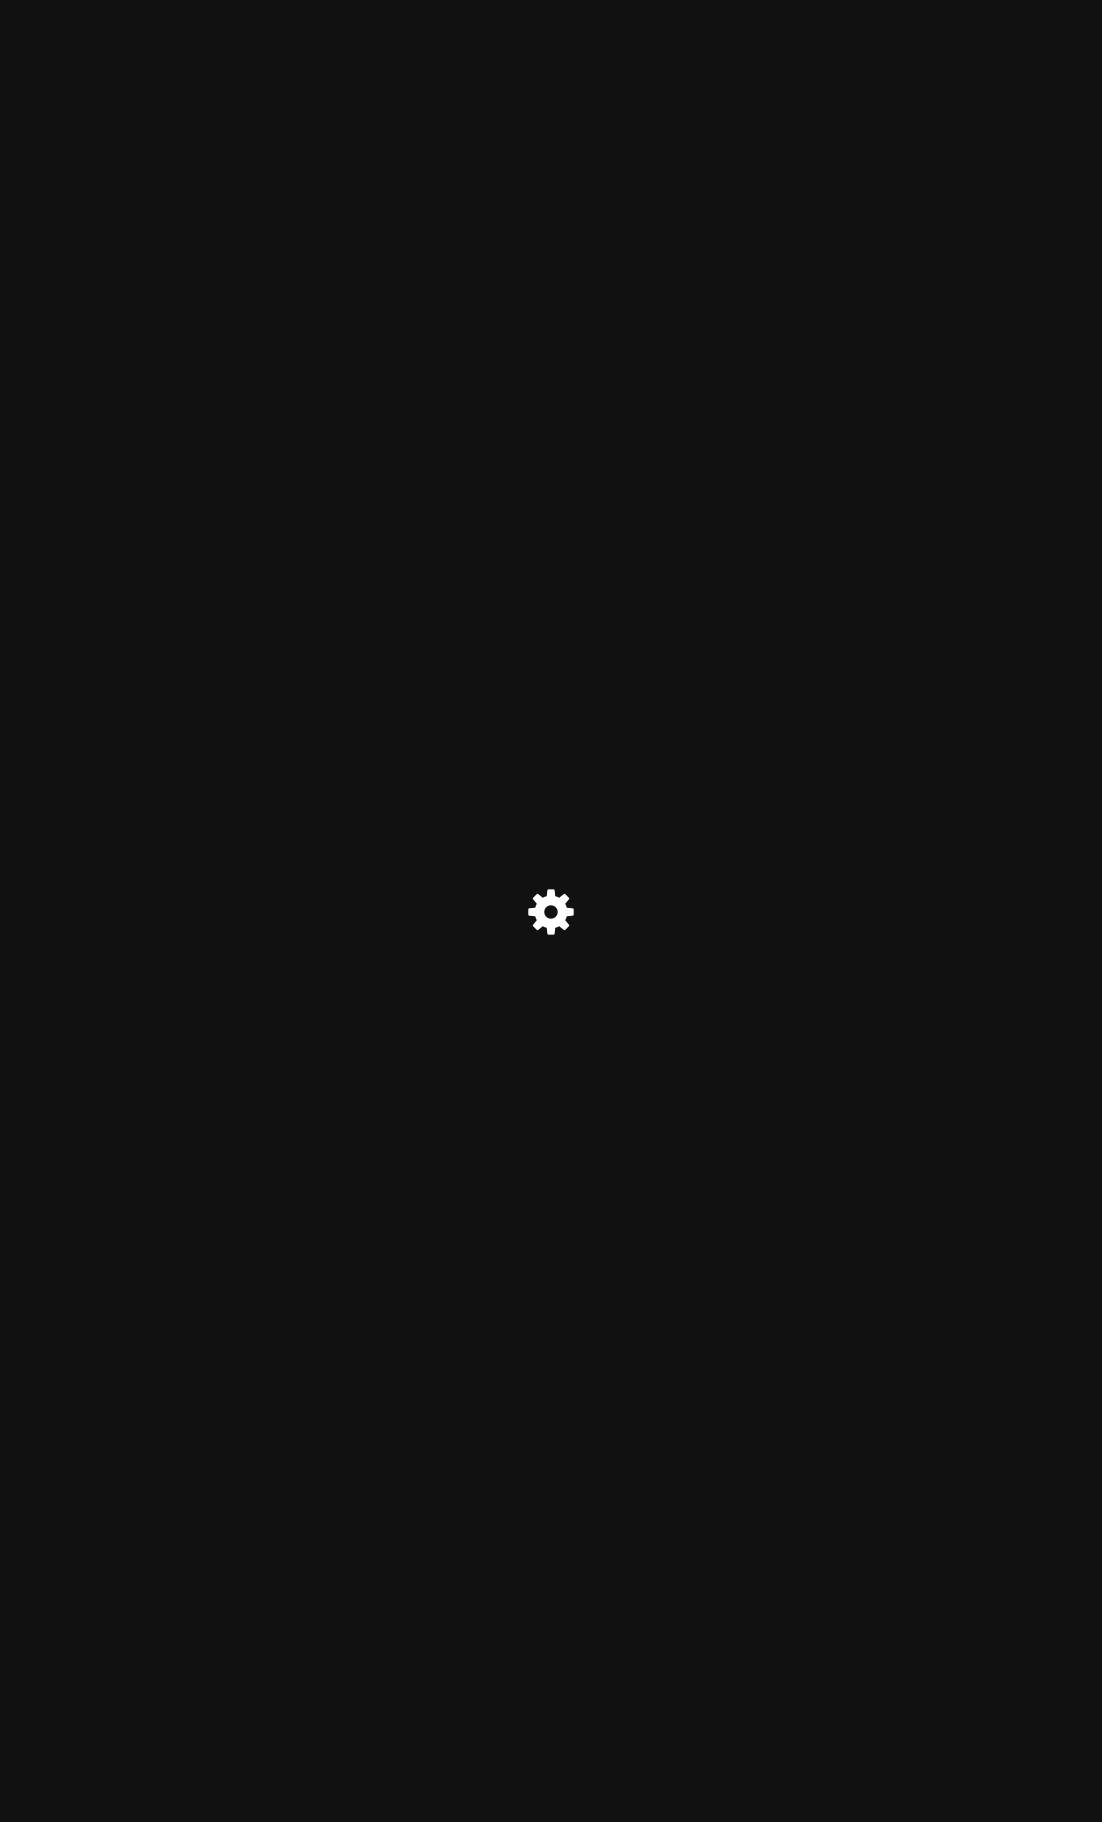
void draw(SkCanvas* c) {
SkPaint p;
p.setAntiAlias(true);
auto I=[&](const char* path, float x, float y, float w, float h){auto image = SkImages::DeferredFromEncodedData(SkData::MakeFromFileName(path));c->drawImageRect(image, SkRect::MakeXYWH(x, y, w, h), SkSamplingOptions());};
c->clear(0xff111111);
I("1.png",528,889,46,46);
}
